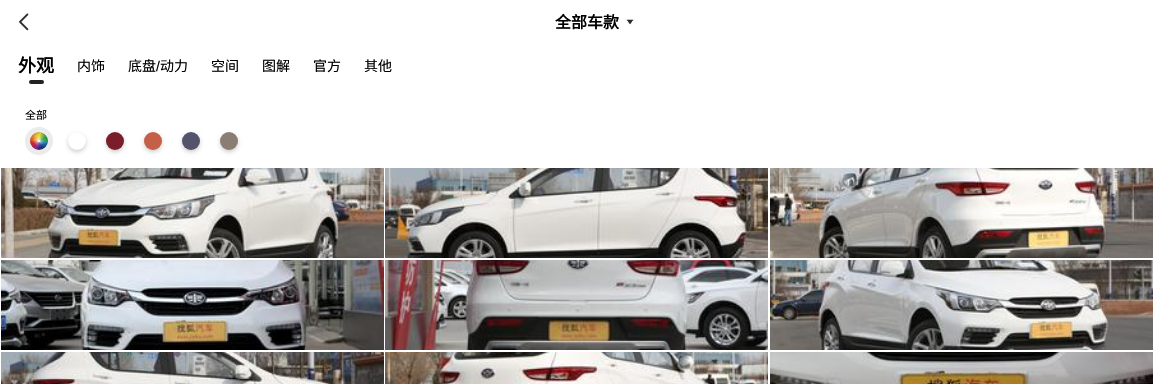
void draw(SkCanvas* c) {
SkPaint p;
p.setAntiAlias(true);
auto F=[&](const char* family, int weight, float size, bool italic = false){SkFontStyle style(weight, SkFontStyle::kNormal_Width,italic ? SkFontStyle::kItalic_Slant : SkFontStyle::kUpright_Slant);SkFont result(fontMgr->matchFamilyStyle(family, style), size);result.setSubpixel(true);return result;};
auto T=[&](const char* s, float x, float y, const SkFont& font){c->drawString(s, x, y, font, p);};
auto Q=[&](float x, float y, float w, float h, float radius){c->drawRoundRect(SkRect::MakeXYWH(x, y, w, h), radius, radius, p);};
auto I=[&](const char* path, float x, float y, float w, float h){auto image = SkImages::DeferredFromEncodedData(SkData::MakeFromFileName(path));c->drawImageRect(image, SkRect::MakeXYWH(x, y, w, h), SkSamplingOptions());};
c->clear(0xffffffff);
I("1.png",19,13,10,18);
auto f1 = F("Noto Sans CJK SC",700,16);
p.setColor(0xff000000);
T("全部车款",555,28,f1);
I("2.png",626,19,8,6);
auto f2 = F("Noto Sans CJK SC",700,18);
T("外观",18,72,f2);
p.setColor(0xff222222);
Q(29,80,15,4,2);
auto f3 = F("Noto Sans CJK SC",400,14);
p.setColor(0xff000000);
T("内饰",77,71,f3);
T("底盘",128,71,f3);
auto f4 = F("Liberation Sans",400,14);
T("/",156,71,f4);
T("动力",160,71,f3);
T("空间",211,71,f3);
T("图解",262,71,f3);
T("官方",313,71,f3);
T("其他",364,71,f3);
auto f5 = F("Noto Sans CJK SC",400,11);
T("全部",25,119,f5);
I("3.png",30,132,18,18);
p.setStroke(true);
p.setStrokeWidth(5);
p.setColor(0xffebebeb);
c->drawCircle(39,141,11.5,p);
p.setStroke(false);
p.setColor(0x33000000);
p.setMaskFilter(SkMaskFilter::MakeBlur(kNormal_SkBlurStyle, 2));
c->drawRoundRect(SkRect::MakeXYWH(68,134,18,18),9,9,p);
p.setMaskFilter(nullptr);
p.setColor(0xffffffff);
c->drawCircle(77,141,9,p);
p.setColor(0x33000000);
p.setMaskFilter(SkMaskFilter::MakeBlur(kNormal_SkBlurStyle, 2));
c->drawRoundRect(SkRect::MakeXYWH(106,134,18,18),9,9,p);
p.setMaskFilter(nullptr);
p.setColor(0xff7b1e2b);
c->drawCircle(115,141,9,p);
p.setColor(0x33000000);
p.setMaskFilter(SkMaskFilter::MakeBlur(kNormal_SkBlurStyle, 2));
c->drawRoundRect(SkRect::MakeXYWH(144,134,18,18),9,9,p);
p.setMaskFilter(nullptr);
p.setColor(0xffc46047);
c->drawCircle(153,141,9,p);
p.setColor(0x33000000);
p.setMaskFilter(SkMaskFilter::MakeBlur(kNormal_SkBlurStyle, 2));
c->drawRoundRect(SkRect::MakeXYWH(182,134,18,18),9,9,p);
p.setMaskFilter(nullptr);
p.setColor(0xff53536b);
c->drawCircle(191,141,9,p);
p.setColor(0x33000000);
p.setMaskFilter(SkMaskFilter::MakeBlur(kNormal_SkBlurStyle, 2));
c->drawRoundRect(SkRect::MakeXYWH(220,134,18,18),9,9,p);
p.setMaskFilter(nullptr);
p.setColor(0xff8a7d74);
c->drawCircle(229,141,9,p);
I("4.png",1,168,383,90);
I("5.png",385,168,383,90);
I("6.png",770,168,383,90);
I("7.png",1,260,383,90);
I("8.png",385,260,383,90);
I("9.png",770,260,383,90);
I("10.png",1,352,383,32);
I("11.png",385,352,383,32);
I("12.png",770,352,383,32);
}
